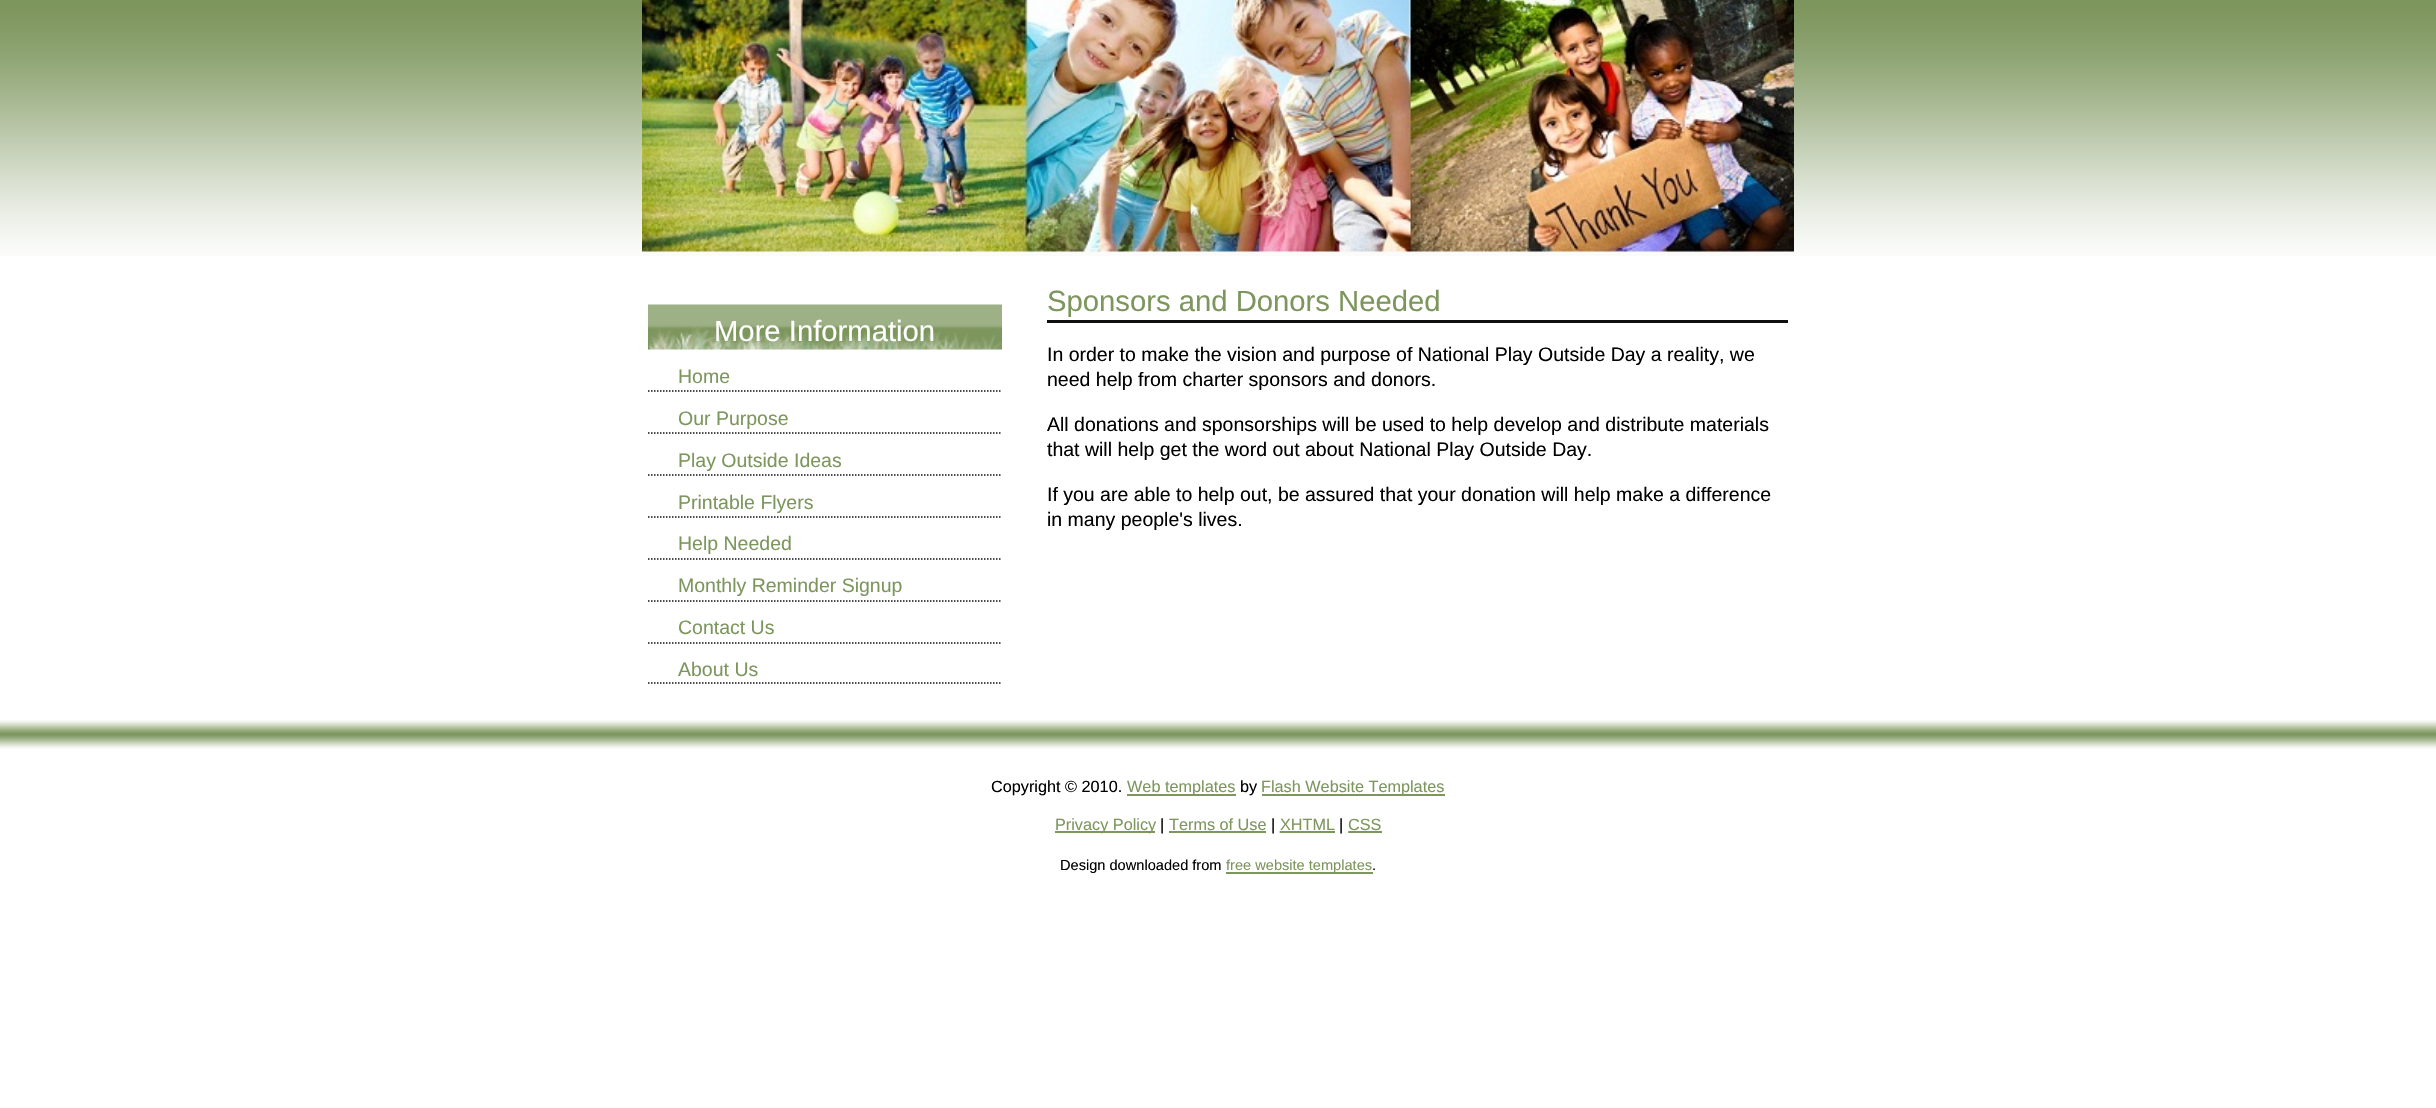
void draw(SkCanvas* c) {
SkPaint p;
p.setAntiAlias(true);
auto F=[&](const char* family, int weight, float size, bool italic = false){SkFontStyle style(weight, SkFontStyle::kNormal_Width,italic ? SkFontStyle::kItalic_Slant : SkFontStyle::kUpright_Slant);SkFont result(fontMgr->matchFamilyStyle(family, style), size);result.setSubpixel(true);return result;};
auto T=[&](const char* s, float x, float y, const SkFont& font){c->drawString(s, x, y, font, p);};
auto R=[&](float x, float y, float w, float h){c->drawRect(SkRect::MakeXYWH(x, y, w, h), p);};
auto I=[&](const char* path, float x, float y, float w, float h){auto image = SkImages::DeferredFromEncodedData(SkData::MakeFromFileName(path));c->drawImageRect(image, SkRect::MakeXYWH(x, y, w, h), SkSamplingOptions());};
auto P=[&](const char* data, bool evenOdd = false){SkPath result = *SkParsePath::FromSVGString(data);if (evenOdd) result.setFillType(SkPathFillType::kEvenOdd);return result;};
c->clear(0xffffffff);
I("1.png",0,0,2436,256);
I("2.png",642,0,1152,252);
I("3.png",648,304,354,46);
auto f1 = F("Liberation Sans",400,29.25);
p.setColor(0xffffffff);
T("More Information",714,341,f1);
p.setStroke(true);
p.setStrokeWidth(1.5);
p.setColor(0xff0f0f0f);
p.setPathEffect(SkDashPathEffect::Make({{1.5f,1.5f}}, 0));
c->drawPath(P("M648 391h354"),p);
p.setPathEffect(nullptr);
auto f2 = F("Liberation Sans",400,19.5);
p.setStroke(false);
p.setColor(0xff7d965d);
T("Home",678,383,f2);
p.setStroke(true);
p.setColor(0xff0f0f0f);
p.setPathEffect(SkDashPathEffect::Make({{1.5f,1.5f}}, 0));
c->drawPath(P("M648 433h354"),p);
p.setPathEffect(nullptr);
p.setStroke(false);
p.setColor(0xff7d965d);
T("Our Purpose",678,425,f2);
p.setStroke(true);
p.setColor(0xff0f0f0f);
p.setPathEffect(SkDashPathEffect::Make({{1.5f,1.5f}}, 0));
c->drawPath(P("M648 475h354"),p);
p.setPathEffect(nullptr);
p.setStroke(false);
p.setColor(0xff7d965d);
T("Play Outside Ideas",678,467,f2);
p.setStroke(true);
p.setColor(0xff0f0f0f);
p.setPathEffect(SkDashPathEffect::Make({{1.5f,1.5f}}, 0));
c->drawPath(P("M648 517h354"),p);
p.setPathEffect(nullptr);
p.setStroke(false);
p.setColor(0xff7d965d);
T("Printable Flyers",678,509,f2);
p.setStroke(true);
p.setColor(0xff0f0f0f);
p.setPathEffect(SkDashPathEffect::Make({{1.5f,1.5f}}, 0));
c->drawPath(P("M648 559h354"),p);
p.setPathEffect(nullptr);
p.setStroke(false);
p.setColor(0xff7d965d);
T("Help Needed",678,550,f2);
p.setStroke(true);
p.setColor(0xff0f0f0f);
p.setPathEffect(SkDashPathEffect::Make({{1.5f,1.5f}}, 0));
c->drawPath(P("M648 601h354"),p);
p.setPathEffect(nullptr);
p.setStroke(false);
p.setColor(0xff7d965d);
T("Monthly Reminder Signup",678,592,f2);
p.setStroke(true);
p.setColor(0xff0f0f0f);
p.setPathEffect(SkDashPathEffect::Make({{1.5f,1.5f}}, 0));
c->drawPath(P("M648 643h354"),p);
p.setPathEffect(nullptr);
p.setStroke(false);
p.setColor(0xff7d965d);
T("Contact Us",678,634,f2);
p.setStroke(true);
p.setColor(0xff0f0f0f);
p.setPathEffect(SkDashPathEffect::Make({{1.5f,1.5f}}, 0));
c->drawPath(P("M648 683h354"),p);
p.setPathEffect(nullptr);
p.setStroke(false);
p.setColor(0xff7d965d);
T("About Us",678,676,f2);
p.setColor(0xff0f0f0f);
R(1047,320,741,3);
p.setColor(0xff7d965d);
T("Sponsors and Donors Needed",1047,311,f1);
p.setColor(0xff000000);
T("In order to make the vision and purpose of National Play Outside Day a reality, we",1047,361,f2);
T("need help from charter sponsors and donors.",1047,386,f2);
T("All donations and sponsorships will be used to help develop and distribute materials",1047,431,f2);
T("that will help get the word out about National Play Outside Day.",1047,456,f2);
T("If you are able to help out, be assured that your donation will help make a difference",1047,501,f2);
T("in many people's lives.",1047,526,f2);
I("4.png",0,720,2436,29);
auto f3 = F("Liberation Sans",400,16.25);
T("Copyright © 2010.",991,792,f3);
p.setColor(0xff7d965d);
R(1127,794,109,2);
T("Web templates",1127,792,f3);
p.setColor(0xff000000);
T("by",1240,792,f3);
p.setColor(0xff7d965d);
R(1262,794,183,2);
T("Flash Website Templates",1261,792,f3);
R(1055,831,100,2);
T("Privacy Policy",1055,830,f3);
p.setColor(0xff000000);
T("|",1160,830,f3);
p.setColor(0xff7d965d);
T("Terms of Use",1169,830,f3);
R(1169,831,97,2);
p.setColor(0xff000000);
T("|",1271,830,f3);
p.setColor(0xff7d965d);
T("XHTML",1280,830,f3);
p.setStroke(true);
p.setPathEffect(SkDashPathEffect::Make({{1.5f,1.5f}}, 0));
c->drawPath(P("M1279.5 832h55"),p);
p.setPathEffect(nullptr);
p.setStroke(false);
R(1280,831,55,2);
p.setColor(0xff000000);
T("|",1339,830,f3);
p.setColor(0xff7d965d);
T("CSS",1348,830,f3);
p.setStroke(true);
p.setPathEffect(SkDashPathEffect::Make({{1.5f,1.5f}}, 0));
c->drawPath(P("M1348 832h33.5"),p);
p.setPathEffect(nullptr);
p.setStroke(false);
R(1349,831,33,2);
auto f4 = F("Liberation Sans",400,14.6);
p.setColor(0xff000000);
T("Design downloaded from",1060,870,f4);
p.setColor(0xff7d965d);
R(1226,872,147,2);
T("free website templates",1226,870,f4);
p.setColor(0xff000000);
T(".",1372,870,f4);
}
